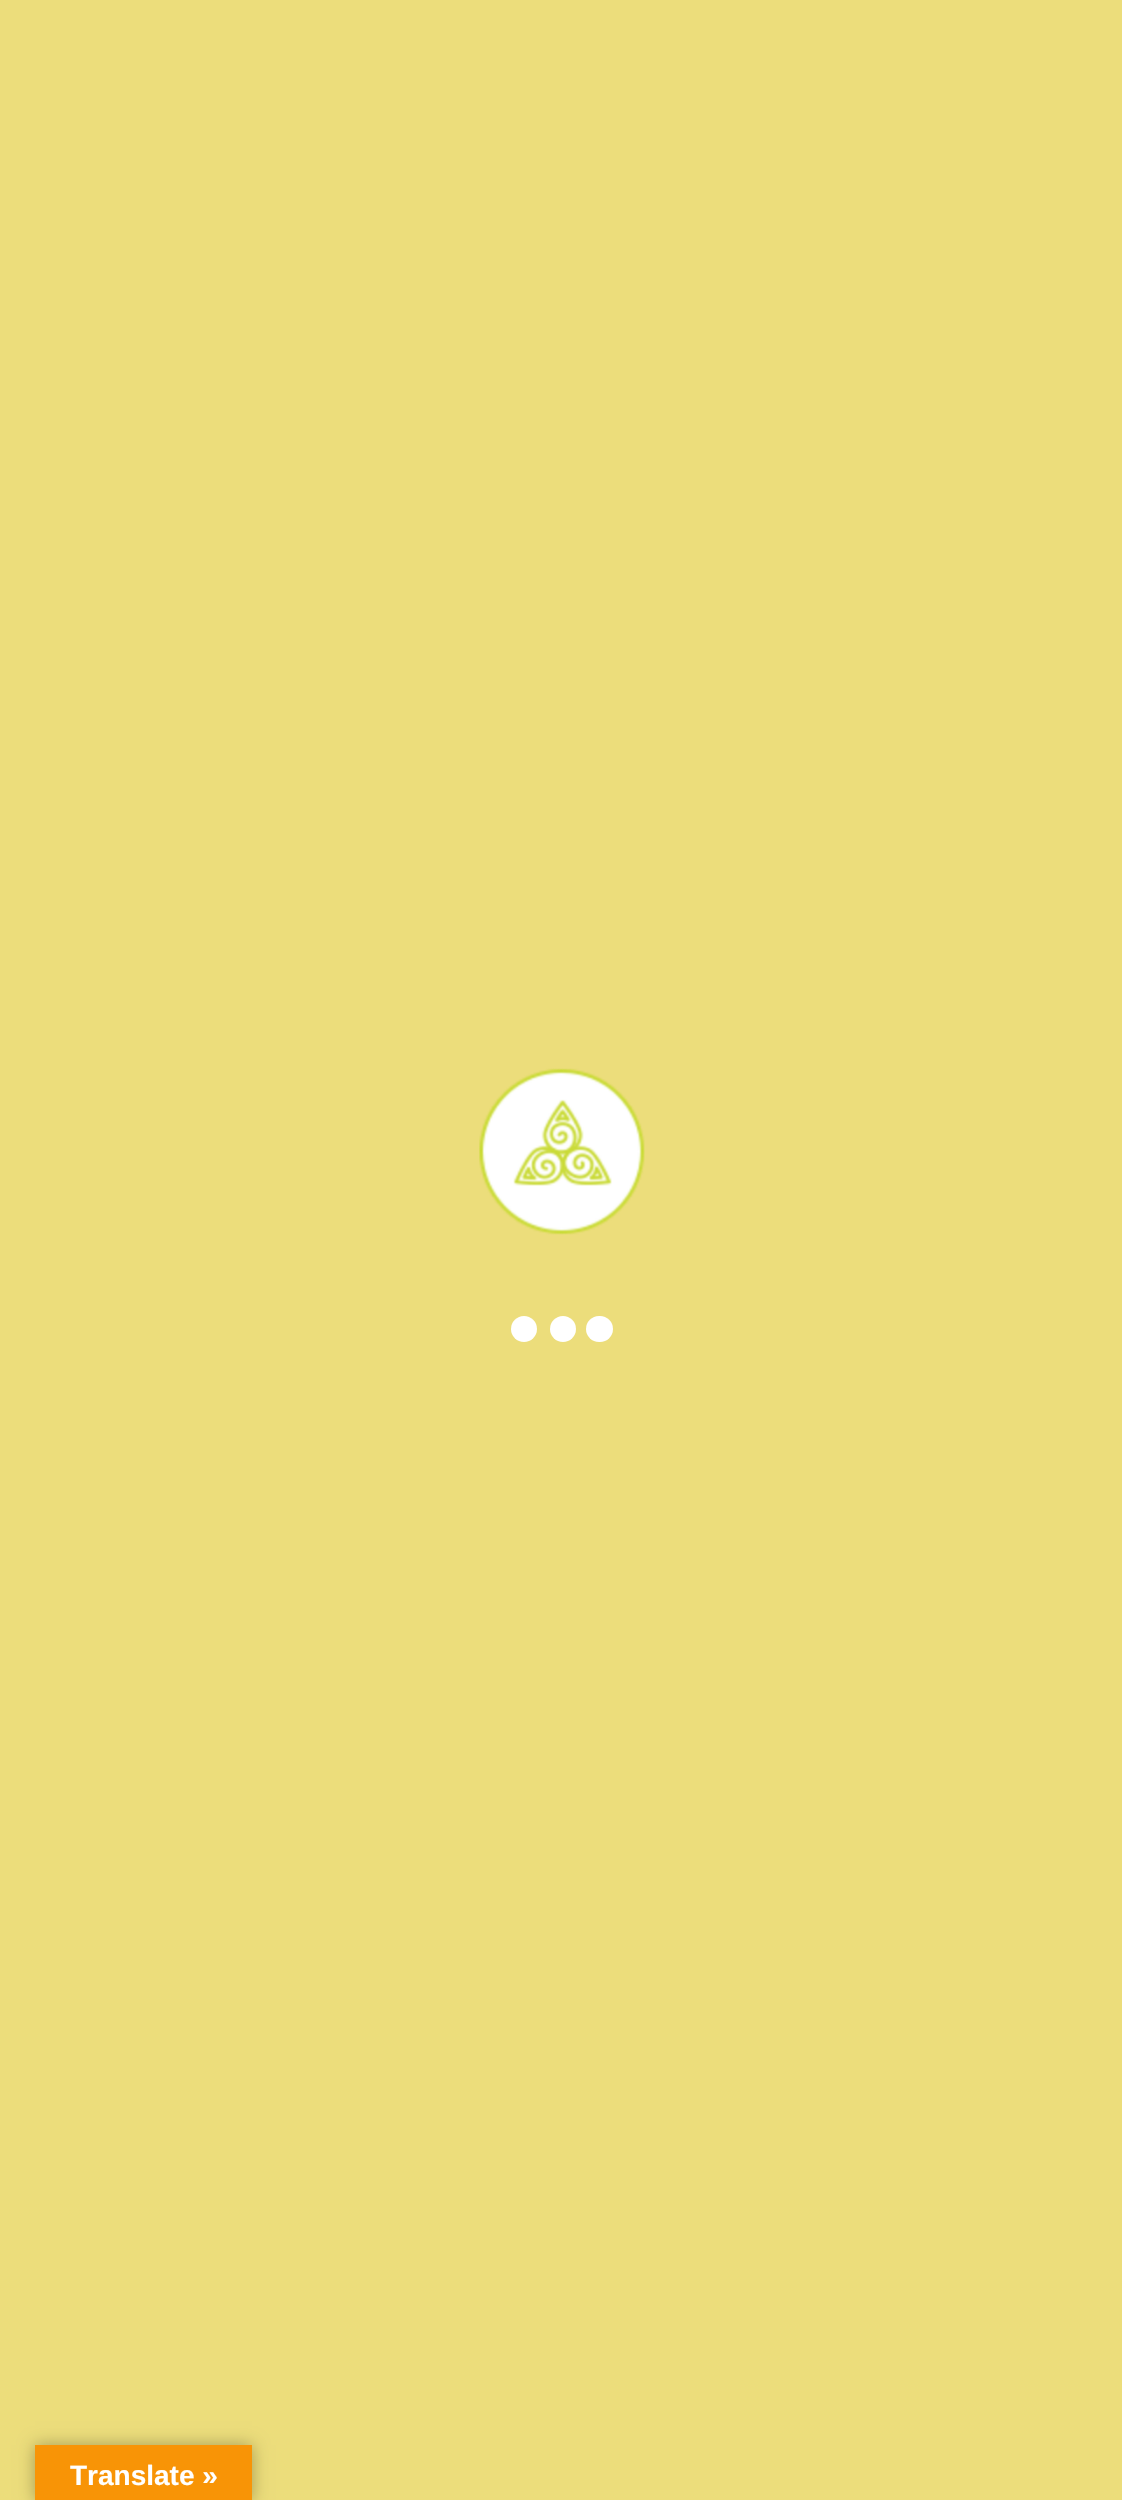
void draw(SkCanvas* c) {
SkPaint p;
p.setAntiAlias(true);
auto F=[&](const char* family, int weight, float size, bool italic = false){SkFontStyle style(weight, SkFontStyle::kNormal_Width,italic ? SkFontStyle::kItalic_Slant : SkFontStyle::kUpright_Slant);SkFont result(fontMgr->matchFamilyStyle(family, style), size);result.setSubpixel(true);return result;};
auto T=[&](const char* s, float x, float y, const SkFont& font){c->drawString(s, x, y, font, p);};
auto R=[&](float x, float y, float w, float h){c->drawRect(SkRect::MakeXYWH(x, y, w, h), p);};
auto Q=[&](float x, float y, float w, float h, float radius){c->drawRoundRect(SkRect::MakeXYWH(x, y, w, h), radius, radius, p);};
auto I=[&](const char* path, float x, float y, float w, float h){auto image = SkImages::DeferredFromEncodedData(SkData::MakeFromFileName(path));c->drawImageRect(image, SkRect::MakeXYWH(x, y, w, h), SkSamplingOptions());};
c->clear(0xffecdd7b);
I("1.png",479,1068,166,167);
p.setColor(0xffffffff);
c->drawCircle(524,1329,13,p);
c->drawCircle(563,1329,13,p);
Q(586,1316,27,26,13);
p.setColor(0x4d000000);
p.setMaskFilter(SkMaskFilter::MakeBlur(kNormal_SkBlurStyle, 8));
c->drawRect(SkRect::MakeXYWH(35,2445,217,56),p);
p.setMaskFilter(nullptr);
p.setColor(0xfff89406);
R(35,2445,217,55);
auto f1 = F("Liberation Sans",700,28);
p.setColor(0xffffffff);
T("Translate »",70,2485,f1);
}
